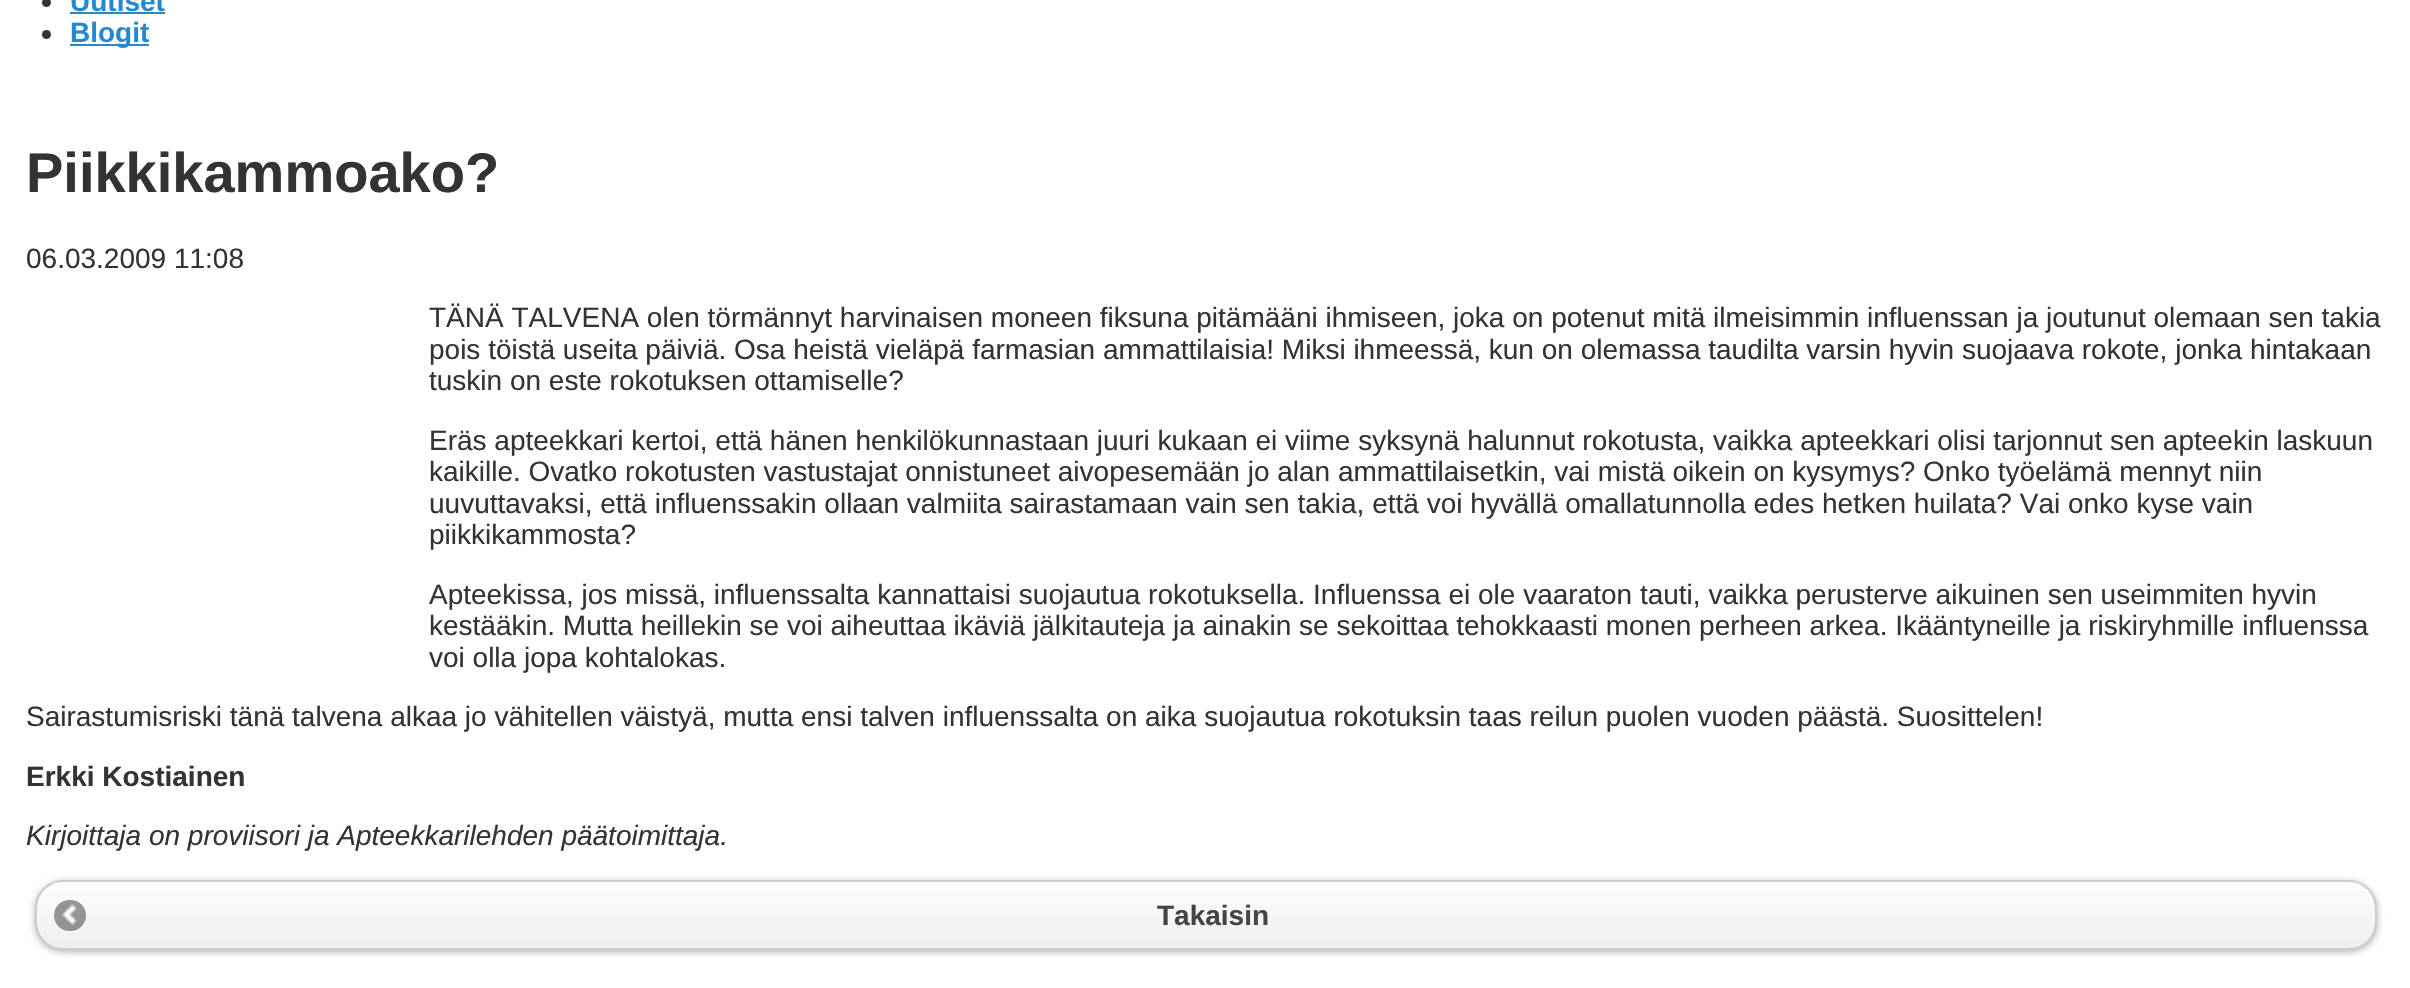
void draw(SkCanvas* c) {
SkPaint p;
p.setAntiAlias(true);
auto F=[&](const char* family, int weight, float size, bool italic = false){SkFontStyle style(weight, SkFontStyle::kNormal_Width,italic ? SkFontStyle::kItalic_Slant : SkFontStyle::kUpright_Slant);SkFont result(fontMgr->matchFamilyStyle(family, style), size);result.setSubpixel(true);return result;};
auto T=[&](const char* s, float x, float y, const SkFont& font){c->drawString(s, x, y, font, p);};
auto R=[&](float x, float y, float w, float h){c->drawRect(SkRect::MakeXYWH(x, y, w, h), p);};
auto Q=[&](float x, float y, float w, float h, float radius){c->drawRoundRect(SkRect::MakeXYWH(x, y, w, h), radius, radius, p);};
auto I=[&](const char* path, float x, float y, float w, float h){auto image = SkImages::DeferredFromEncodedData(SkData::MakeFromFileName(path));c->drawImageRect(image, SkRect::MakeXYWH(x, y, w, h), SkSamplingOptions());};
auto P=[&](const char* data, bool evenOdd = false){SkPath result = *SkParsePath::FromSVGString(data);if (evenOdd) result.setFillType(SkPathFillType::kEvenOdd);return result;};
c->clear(0xffffffff);
p.setColor(0xff333333);
c->drawCircle(46.5,2.5,4.5,p);
auto f1 = F("Liberation Sans",700,28);
p.setColor(0xff2489ce);
T("Uutiset",70,11,f1);
R(70,12,95,2);
p.setColor(0xff333333);
c->drawCircle(46.5,34.5,4.5,p);
p.setColor(0xff2489ce);
R(70,44,79,2);
T("Blogit",70,42,f1);
auto f2 = F("Liberation Sans",700,56);
p.setColor(0xff333333);
T("Piikkikammoako?",26,192,f2);
auto f3 = F("Liberation Sans",400,28);
T("06.03.2009 11:08",26,268,f3);
T("TÄNÄ TALVENA olen törmännyt harvinaisen moneen fiksuna pitämääni ihmiseen, joka on potenut mitä ilmeisimmin influenssan ja joutunut olemaan sen takia",429,327,f3);
T("pois töistä useita päiviä. Osa heistä vieläpä farmasian ammattilaisia! Miksi ihmeessä, kun on olemassa taudilta varsin hyvin suojaava rokote, jonka hintakaan",429,359,f3);
T("tuskin on este rokotuksen ottamiselle?",429,390,f3);
T("Eräs apteekkari kertoi, että hänen henkilökunnastaan juuri kukaan ei viime syksynä halunnut rokotusta, vaikka apteekkari olisi tarjonnut sen apteekin laskuun",429,450,f3);
T("kaikille. Ovatko rokotusten vastustajat onnistuneet aivopesemään jo alan ammattilaisetkin, vai mistä oikein on kysymys? Onko työelämä mennyt niin",429,481,f3);
T("uuvuttavaksi, että influenssakin ollaan valmiita sairastamaan vain sen takia, että voi hyvällä omallatunnolla edes hetken huilata? Vai onko kyse vain",429,513,f3);
T("piikkikammosta?",429,544,f3);
T("Apteekissa, jos missä, influenssalta kannattaisi suojautua rokotuksella. Influenssa ei ole vaaraton tauti, vaikka perusterve aikuinen sen useimmiten hyvin",429,604,f3);
T("kestääkin. Mutta heillekin se voi aiheuttaa ikäviä jälkitauteja ja ainakin se sekoittaa tehokkaasti monen perheen arkea. Ikääntyneille ja riskiryhmille influenssa",429,635,f3);
T("voi olla jopa kohtalokas.",429,667,f3);
T("Sairastumisriski tänä talvena alkaa jo vähitellen väistyä, mutta ensi talven influenssalta on aika suojautua rokotuksin taas reilun puolen vuoden päästä. Suosittelen!",26,726,f3);
T("Erkki Kostiainen",26,786,f1);
auto f4 = F("Liberation Sans",400,28,true);
T("Kirjoittaja on proviisori ja Apteekkarilehden päätoimittaja.",26,845,f4);
p.setColor(0x4d000000);
p.setMaskFilter(SkMaskFilter::MakeBlur(kNormal_SkBlurStyle, 3.5));
c->drawRoundRect(SkRect::MakeXYWH(35,882,2342,70),28,28,p);
p.setMaskFilter(nullptr);
{
const SkColor colors[] = {0xfffdfdfd,0xffeeeeee};
const float stops[] = {0,1};
const SkPoint ends[] = {{1206,882}, {1206,949}};
p.setShader(SkGradientShader::MakeLinear(ends, colors, stops, 2, SkTileMode::kClamp));
p.setAlpha(255);
}
Q(37,882,2338,67,26);
p.setStroke(true);
p.setStrokeWidth(2);
p.setShader(nullptr);
p.setColor(0xffcccccc);
c->drawRoundRect(SkRect::MakeXYWH(36,881,2340,68),27,27,p);
p.setStroke(false);
p.setColor(0x4dffffff);
R(51,882,2310,2);
p.setColor(0x66ffffff);
c->drawPath(P("M54.5 914c-3.5 16.5 19 26.5 29 12c2-3.5 3-8 2-12c.5 3.5-.5 7-2.5 10c-9 13.5-30 6-28.5-10z"),p);
p.setColor(0x66000000);
Q(54,900,32,31,15.5);
I("1.png",62,904,16,22);
p.setColor(0xff444444);
T("Takaisin",1157,925,f1);
}
